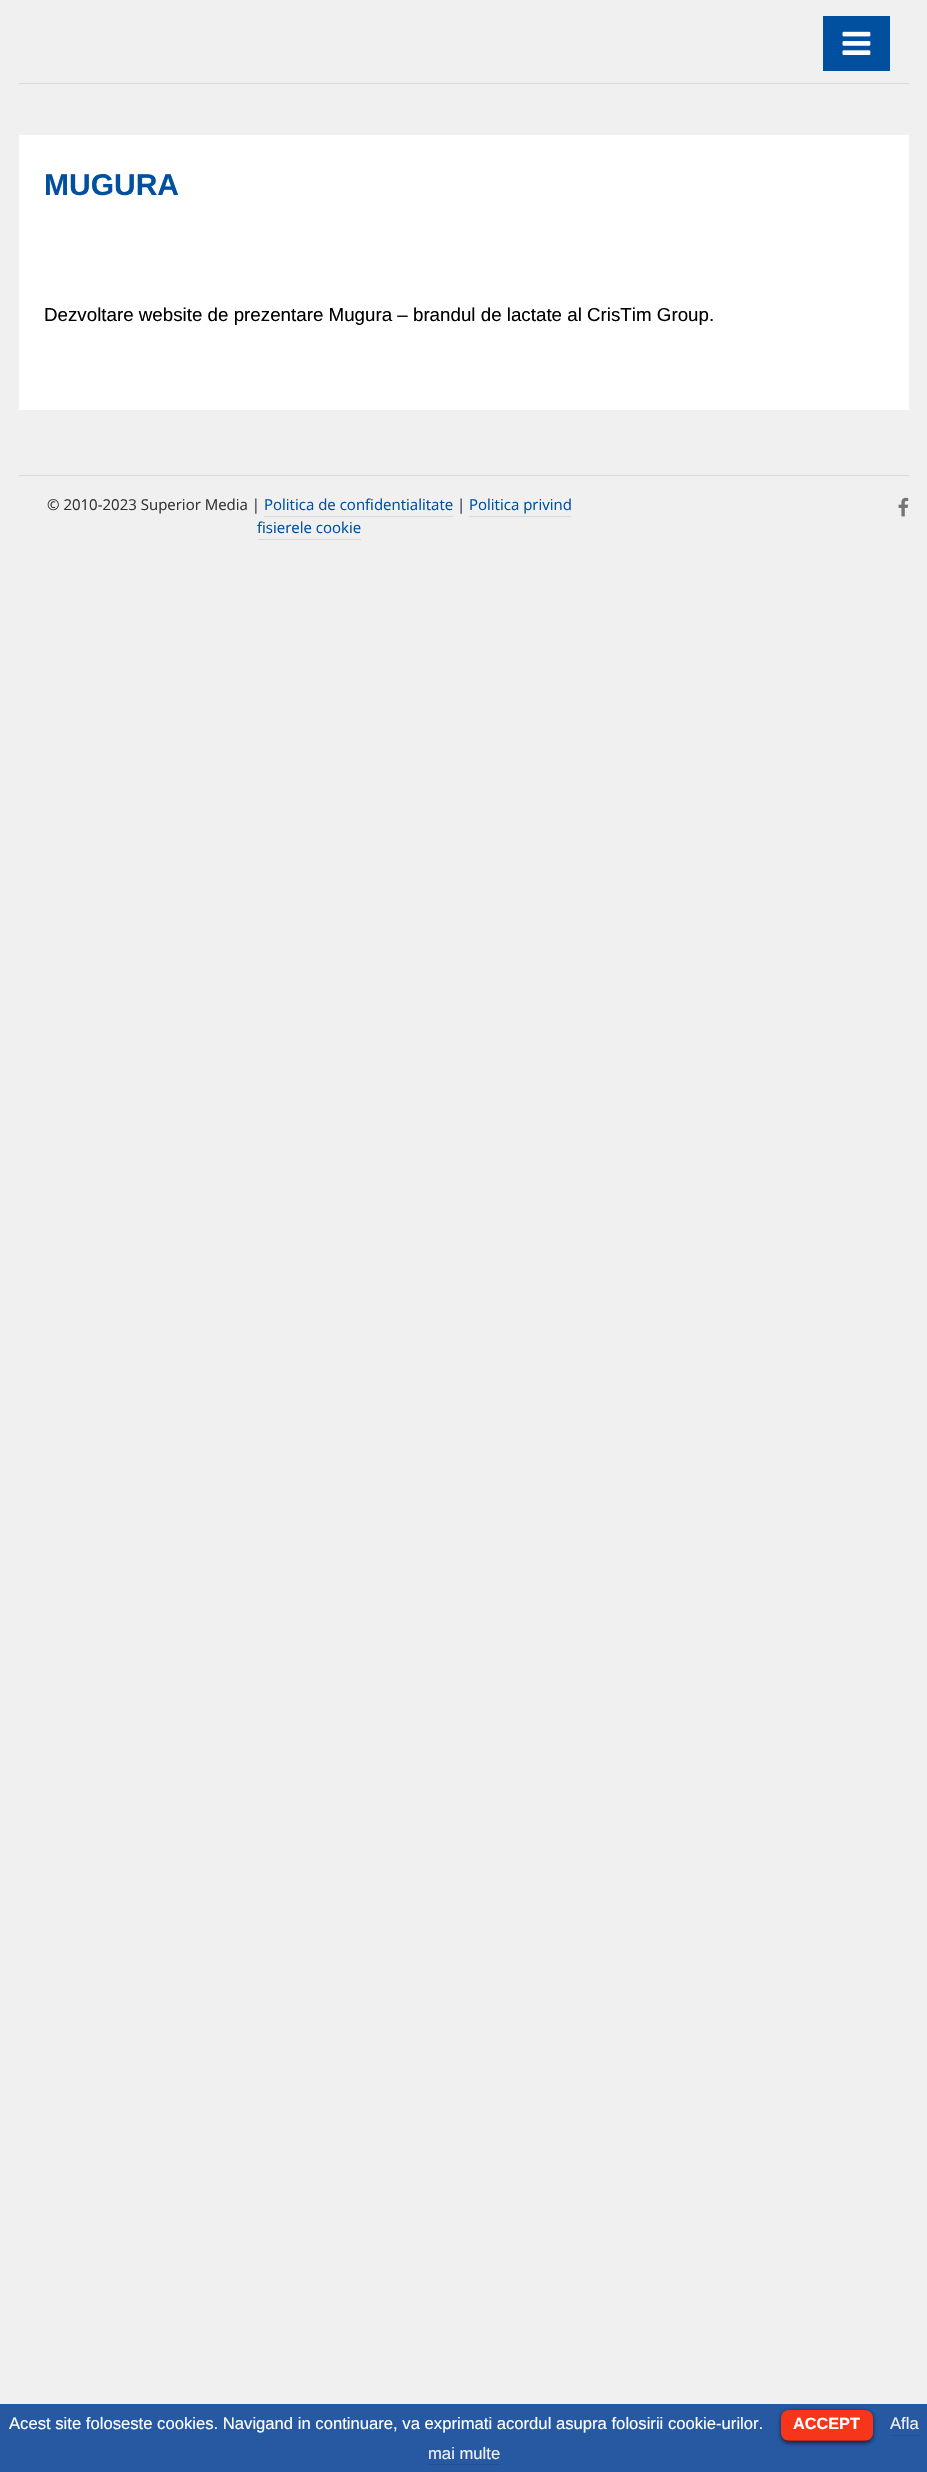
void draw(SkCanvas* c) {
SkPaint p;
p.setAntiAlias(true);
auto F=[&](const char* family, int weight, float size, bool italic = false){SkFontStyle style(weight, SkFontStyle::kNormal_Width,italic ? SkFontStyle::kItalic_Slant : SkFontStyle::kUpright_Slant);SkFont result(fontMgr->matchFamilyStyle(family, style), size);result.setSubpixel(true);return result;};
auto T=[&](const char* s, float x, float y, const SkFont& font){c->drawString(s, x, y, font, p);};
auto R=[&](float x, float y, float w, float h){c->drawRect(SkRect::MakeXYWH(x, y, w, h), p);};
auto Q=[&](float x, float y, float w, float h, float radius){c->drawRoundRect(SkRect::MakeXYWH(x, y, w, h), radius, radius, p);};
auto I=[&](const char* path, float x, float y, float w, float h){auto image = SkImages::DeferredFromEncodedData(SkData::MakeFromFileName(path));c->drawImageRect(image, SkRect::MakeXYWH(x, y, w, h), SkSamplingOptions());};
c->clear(0xfff0f0f0);
p.setColor(0xffd8d8d8);
R(19,83,890,1);
p.setColor(0xff00509f);
R(823,16,67,55);
I("1.png",842,31,29,24);
p.setColor(0xffffffff);
R(19,135,890,275);
auto f1 = F("Arimo",700,30);
p.setColor(0xff00509f);
T("MUGURA",44,195,f1);
auto f2 = F("Arimo",400,18.75);
p.setColor(0xff000000);
T("Dezvoltare website de prezentare Mugura – brandul de lactate al CrisTim Group.",44,321,f2);
p.setColor(0xffd8d8d8);
R(19,475,890,1);
auto f3 = F("Open Sans",400,15);
p.setColor(0xff333333);
T("© 2010-2023 Superior Media |",47,510,f3);
p.setColor(0xff00509f);
T("Politica de confidentialitate",264,510,f3);
p.setColor(0xffd8d8d8);
R(264,516,189,1);
p.setColor(0xff333333);
T("|",457,510,f3);
p.setColor(0xff00509f);
T("Politica privind",469,510,f3);
p.setColor(0xffd8d8d8);
R(469,516,102,1);
p.setColor(0xff00509f);
T("fisierele cookie",257,533,f3);
p.setColor(0xffd8d8d8);
R(258,539,103,1);
I("2.png",898,497,11,20);
p.setColor(0xff2659a2);
R(0,2404,927,68);
auto f4 = F("Arimo",400,16.65);
p.setColor(0xffffffff);
T("Acest site foloseste cookies. Navigand in continuare, va exprimati acordul asupra folosirii cookie-urilor.",9,2429,f4);
p.setColor(0x99000000);
p.setMaskFilter(SkMaskFilter::MakeBlur(kNormal_SkBlurStyle, 2));
c->drawRoundRect(SkRect::MakeXYWH(781,2411,92,32),8,8,p);
p.setMaskFilter(nullptr);
p.setColor(0xfff6351a);
Q(781,2410,92,31,8);
p.setColor(0x40000000);
R(785,2440,84,1);
auto f5 = F("Arimo",700,16.25);
p.setColor(0xffffffff);
T("ACCEPT",793,2429,f5);
p.setColor(0xfff0f0f0);
T("Afla",890,2429,f4);
p.setColor(0xff225092);
R(890,2435,29,1);
p.setColor(0xfff0f0f0);
T("mai multe",428,2459,f4);
p.setColor(0xff225092);
R(428,2464,72,1);
}
